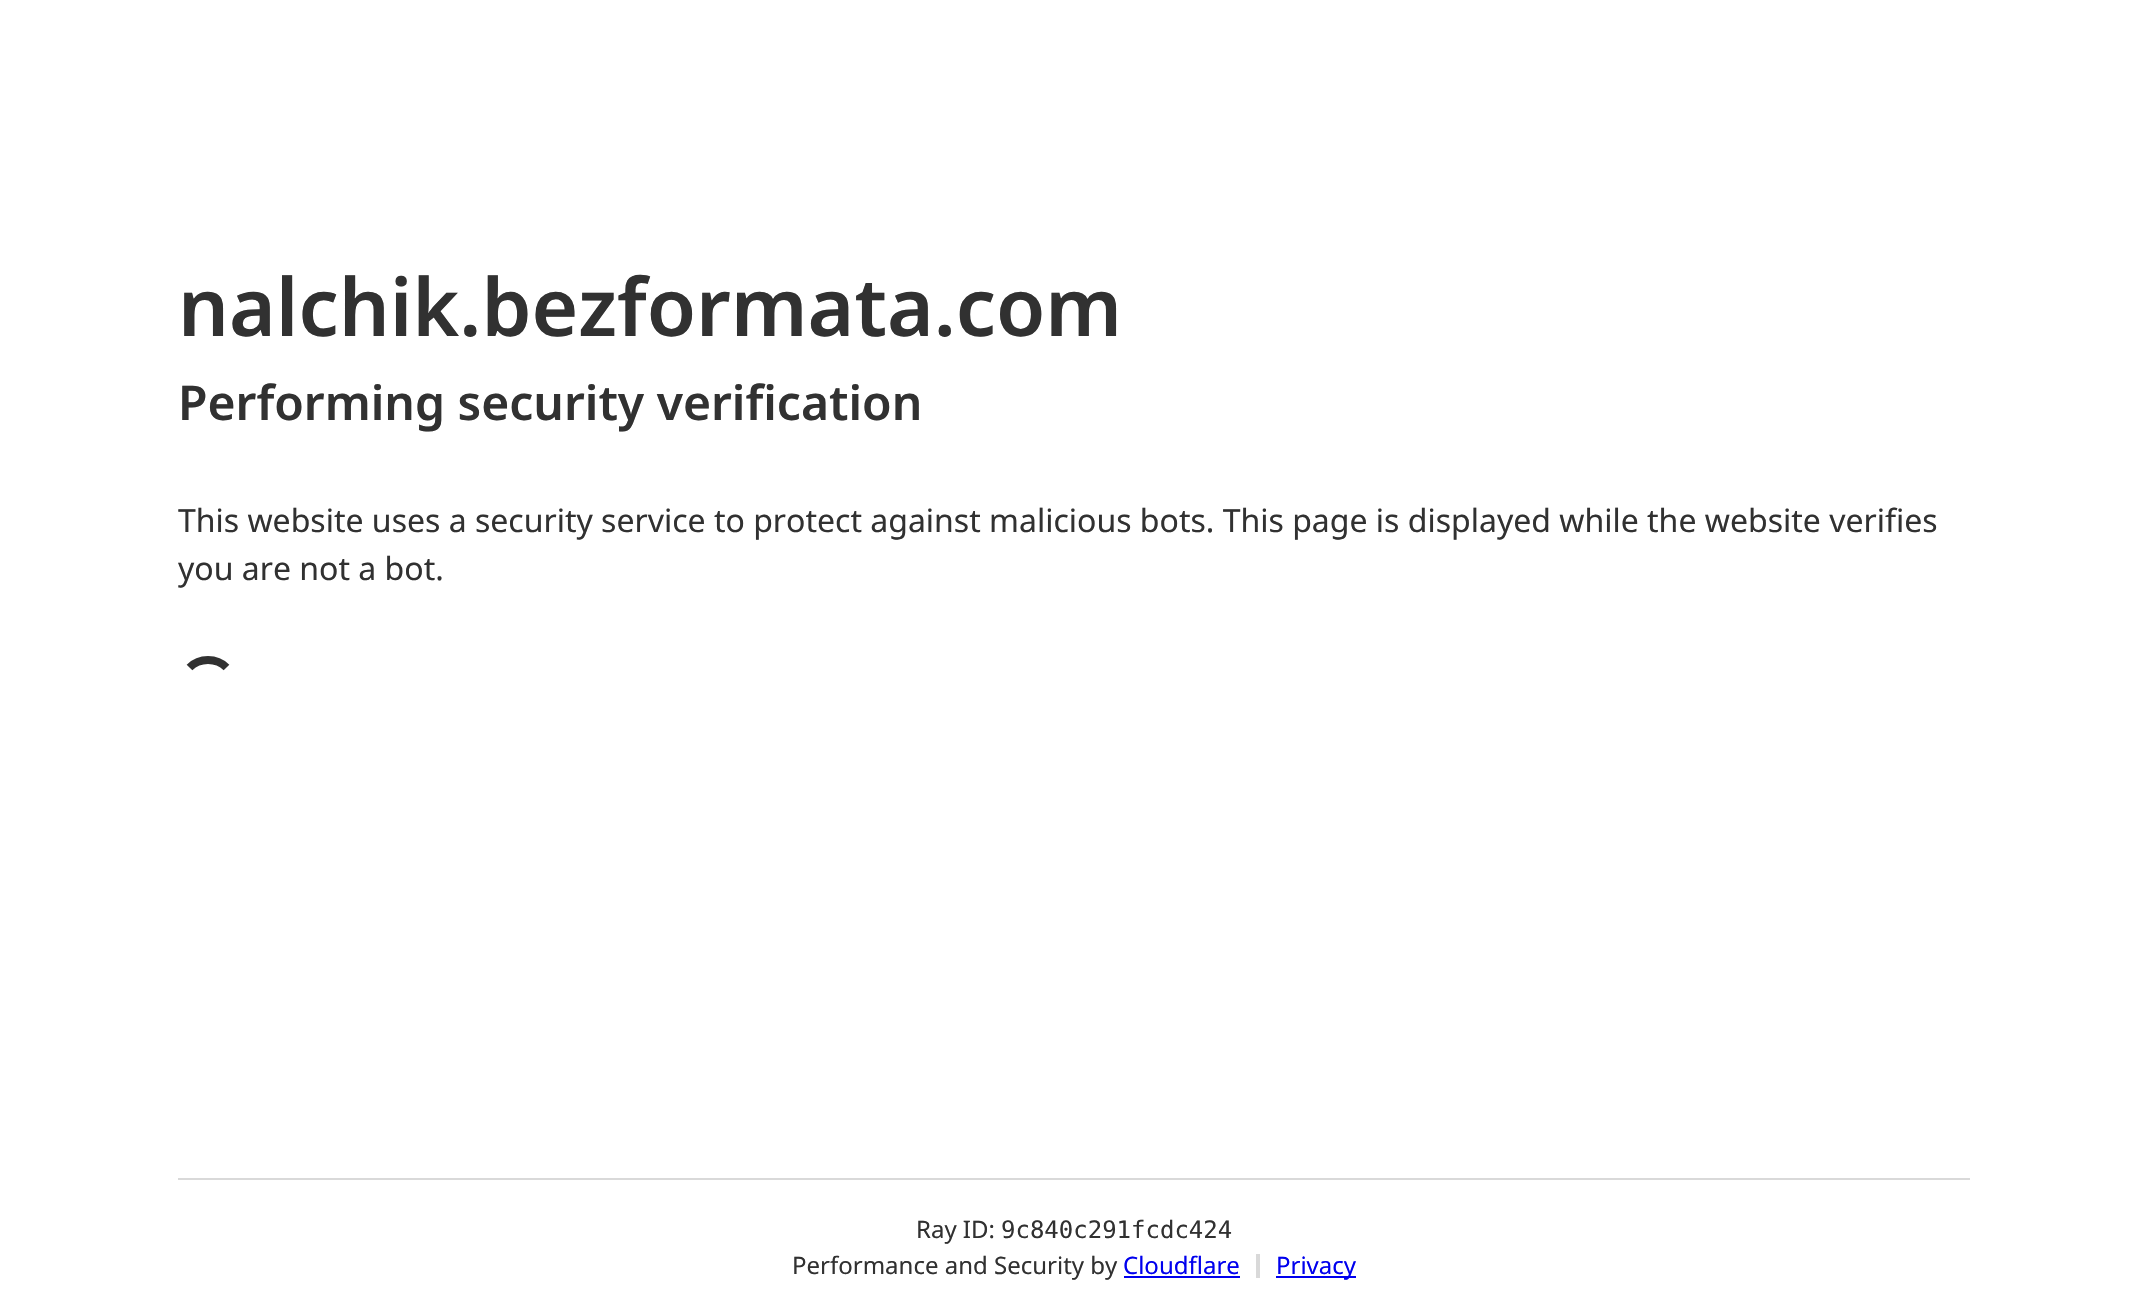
void draw(SkCanvas* c) {
SkPaint p;
p.setAntiAlias(true);
auto F=[&](const char* family, int weight, float size, bool italic = false){SkFontStyle style(weight, SkFontStyle::kNormal_Width,italic ? SkFontStyle::kItalic_Slant : SkFontStyle::kUpright_Slant);SkFont result(fontMgr->matchFamilyStyle(family, style), size);result.setSubpixel(true);return result;};
auto T=[&](const char* s, float x, float y, const SkFont& font){c->drawString(s, x, y, font, p);};
auto R=[&](float x, float y, float w, float h){c->drawRect(SkRect::MakeXYWH(x, y, w, h), p);};
auto P=[&](const char* data, bool evenOdd = false){SkPath result = *SkParsePath::FromSVGString(data);if (evenOdd) result.setFillType(SkPathFillType::kEvenOdd);return result;};
c->clear(0xffffffff);
auto f1 = F("Noto Sans",600,80);
p.setColor(0xff313131);
T("nalchik.bezformata.com",178,336,f1);
auto f2 = F("Noto Sans",600,48);
T("Performing security verification",178,420,f2);
auto f3 = F("Noto Sans",400,32);
T("This website uses a security service to protect against malicious bots. This page is displayed while the website verifies",178,532,f3);
T("you are not a bot.",178,580,f3);
p.setStroke(true);
p.setStrokeWidth(8);
c->drawPath(P("M189.5 667.5c10-10 27-10 37 0m-37 0c10-10 27-10 37 0m-37 0c10-10 27-10 37 0m-37 0c10-10 27-10 37 0"),p);
p.setStroke(false);
p.setColor(0xffd9d9d9);
R(178,1178,1792,2);
auto f4 = F("Noto Sans",400,24);
p.setColor(0xff313131);
T("Ray ID:",916,1238,f4);
auto f5 = F("DejaVu Sans Mono",400,24);
T("9c840c291fcdc424",1001,1238,f5);
T("Performance and Security by",792,1274,f4);
p.setColor(0xff0000ee);
T("Cloudflare",1123,1274,f4);
R(1124,1276,116,2);
p.setColor(0xffd9d9d9);
R(1256,1254,4,24);
p.setColor(0xff0000ee);
R(1276,1276,80,2);
T("Privacy",1276,1274,f4);
}
